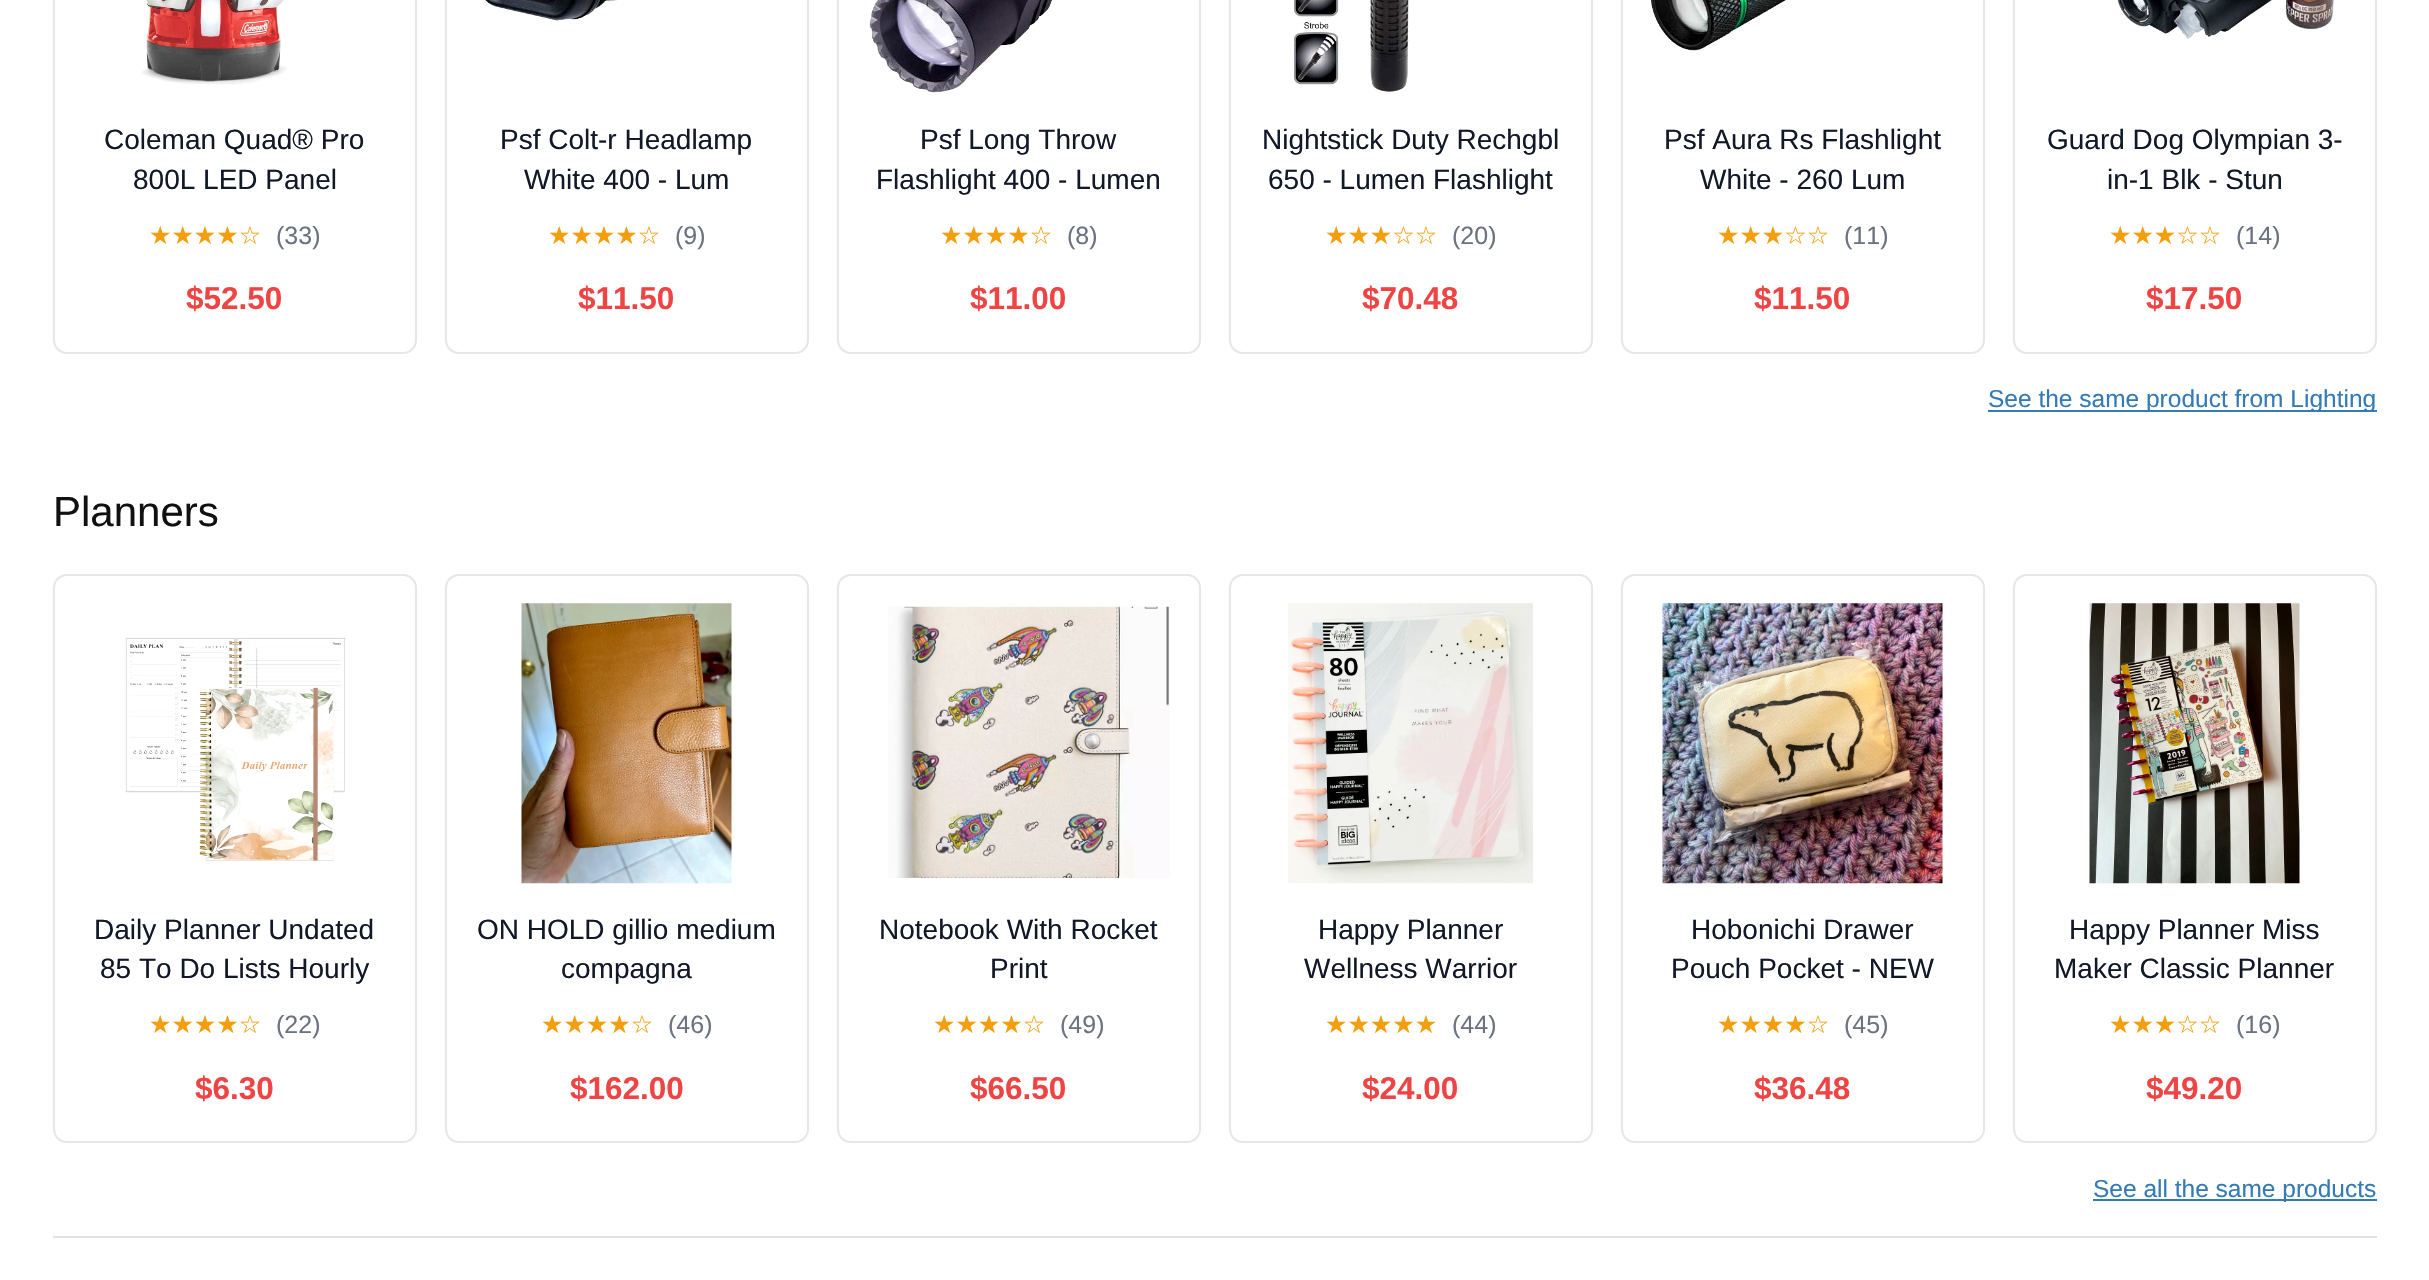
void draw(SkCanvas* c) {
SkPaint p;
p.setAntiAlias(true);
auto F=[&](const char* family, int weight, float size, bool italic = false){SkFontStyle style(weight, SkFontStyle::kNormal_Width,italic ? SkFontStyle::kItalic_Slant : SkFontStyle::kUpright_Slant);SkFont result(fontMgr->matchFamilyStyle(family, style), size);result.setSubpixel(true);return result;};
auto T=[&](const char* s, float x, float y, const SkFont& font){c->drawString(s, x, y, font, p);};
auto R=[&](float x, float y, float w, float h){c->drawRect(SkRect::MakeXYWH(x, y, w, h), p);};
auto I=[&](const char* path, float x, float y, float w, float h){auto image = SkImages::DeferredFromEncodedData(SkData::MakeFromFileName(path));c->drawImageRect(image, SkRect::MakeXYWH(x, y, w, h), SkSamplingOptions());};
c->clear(0xffffffff);
p.setStroke(true);
p.setStrokeWidth(2);
p.setColor(0xffe5e7eb);
c->drawRoundRect(SkRect::MakeXYWH(54,-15,362,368),13,13,p);
I("1.png",141,0,148,85);
auto f1 = F("Liberation Sans",400,28);
p.setStroke(false);
p.setColor(0xff111827);
T("Coleman Quad® Pro",104,149,f1);
T("800L LED Panel",133,189,f1);
auto f2 = F("DejaVu Sans",400,25);
p.setColor(0xfff59e0b);
T("★★★★☆",149,244,f2);
auto f3 = F("Liberation Sans",400,25);
p.setColor(0xff6b7280);
T("(33)",276,244,f3);
auto f4 = F("Liberation Sans",700,31.5);
p.setColor(0xffef4444);
T("$52.50",186,309,f4);
p.setStroke(true);
p.setColor(0xffe5e7eb);
c->drawRoundRect(SkRect::MakeXYWH(446,-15,362,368),13,13,p);
I("2.png",485,0,133,21);
p.setStroke(false);
p.setColor(0xff111827);
T("Psf Colt-r Headlamp",500,149,f1);
T("White 400 - Lum",524,189,f1);
p.setColor(0xfff59e0b);
T("★★★★☆",548,244,f2);
p.setColor(0xff6b7280);
T("(9)",675,244,f3);
p.setColor(0xffef4444);
T("$11.50",578,309,f4);
p.setStroke(true);
p.setColor(0xffe5e7eb);
c->drawRoundRect(SkRect::MakeXYWH(838,-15,362,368),13,13,p);
I("3.png",869,0,183,93);
p.setStroke(false);
p.setColor(0xff111827);
T("Psf Long Throw",920,149,f1);
T("Flashlight 400 - Lumen",876,189,f1);
p.setColor(0xfff59e0b);
T("★★★★☆",940,244,f2);
p.setColor(0xff6b7280);
T("(8)",1067,244,f3);
p.setColor(0xffef4444);
T("$11.00",970,309,f4);
p.setStroke(true);
p.setColor(0xffe5e7eb);
c->drawRoundRect(SkRect::MakeXYWH(1230,-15,362,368),13,13,p);
I("4.png",1293,0,116,92);
p.setStroke(false);
p.setColor(0xff111827);
T("Nightstick Duty Rechgbl",1262,149,f1);
T("650 - Lumen Flashlight",1268,189,f1);
p.setColor(0xfff59e0b);
T("★★★☆☆",1325,244,f2);
p.setColor(0xff6b7280);
T("(20)",1452,244,f3);
p.setColor(0xffef4444);
T("$70.48",1362,309,f4);
p.setStroke(true);
p.setColor(0xffe5e7eb);
c->drawRoundRect(SkRect::MakeXYWH(1622,-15,362,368),13,13,p);
I("5.png",1650,0,137,51);
p.setStroke(false);
p.setColor(0xff111827);
T("Psf Aura Rs Flashlight",1664,149,f1);
T("White - 260 Lum",1700,189,f1);
p.setColor(0xfff59e0b);
T("★★★☆☆",1717,244,f2);
p.setColor(0xff6b7280);
T("(11)",1844,244,f3);
p.setColor(0xffef4444);
T("$11.50",1754,309,f4);
p.setStroke(true);
p.setColor(0xffe5e7eb);
c->drawRoundRect(SkRect::MakeXYWH(2014,-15,362,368),13,13,p);
I("6.png",2117,0,217,40);
p.setStroke(false);
p.setColor(0xff111827);
T("Guard Dog Olympian 3-",2047,149,f1);
T("in-1 Blk - Stun",2107,189,f1);
p.setColor(0xfff59e0b);
T("★★★☆☆",2109,244,f2);
p.setColor(0xff6b7280);
T("(14)",2236,244,f3);
p.setColor(0xffef4444);
T("$17.50",2146,309,f4);
p.setColor(0xff337ab7);
R(1988,410,389,2);
auto f5 = F("Liberation Sans",400,24.5);
T("See the same product from Lighting",1988,407,f5);
auto f6 = F("Liberation Sans",400,42);
p.setColor(0xff111111);
T("Planners",53,526,f6);
p.setStroke(true);
p.setColor(0xffe5e7eb);
c->drawRoundRect(SkRect::MakeXYWH(54,575,362,567),13,13,p);
I("7.png",125,637,220,224);
p.setStroke(false);
p.setColor(0xff111827);
T("Daily Planner Undated",94,939,f1);
T("85 To Do Lists Hourly",100,978,f1);
p.setColor(0xfff59e0b);
T("★★★★☆",149,1033,f2);
p.setColor(0xff6b7280);
T("(22)",276,1033,f3);
p.setColor(0xffef4444);
T("$6.30",195,1099,f4);
p.setStroke(true);
p.setColor(0xffe5e7eb);
c->drawRoundRect(SkRect::MakeXYWH(446,575,362,567),13,13,p);
I("8.png",521,603,211,281);
p.setStroke(false);
p.setColor(0xff111827);
T("ON HOLD gillio medium",477,939,f1);
T("compagna",561,978,f1);
p.setColor(0xfff59e0b);
T("★★★★☆",541,1033,f2);
p.setColor(0xff6b7280);
T("(46)",668,1033,f3);
p.setColor(0xffef4444);
T("$162.00",570,1099,f4);
p.setStroke(true);
p.setColor(0xffe5e7eb);
c->drawRoundRect(SkRect::MakeXYWH(838,575,362,567),13,13,p);
I("9.png",888,606,282,272);
p.setStroke(false);
p.setColor(0xff111827);
T("Notebook With Rocket",879,939,f1);
T("Print",990,978,f1);
p.setColor(0xfff59e0b);
T("★★★★☆",933,1033,f2);
p.setColor(0xff6b7280);
T("(49)",1060,1033,f3);
p.setColor(0xffef4444);
T("$66.50",970,1099,f4);
p.setStroke(true);
p.setColor(0xffe5e7eb);
c->drawRoundRect(SkRect::MakeXYWH(1230,575,362,567),13,13,p);
I("10.png",1288,603,245,281);
p.setStroke(false);
p.setColor(0xff111827);
T("Happy Planner",1318,939,f1);
T("Wellness Warrior",1304,978,f1);
p.setColor(0xfff59e0b);
T("★★★★★",1325,1033,f2);
p.setColor(0xff6b7280);
T("(44)",1452,1033,f3);
p.setColor(0xffef4444);
T("$24.00",1362,1099,f4);
p.setStroke(true);
p.setColor(0xffe5e7eb);
c->drawRoundRect(SkRect::MakeXYWH(1622,575,362,567),13,13,p);
I("11.png",1662,603,281,281);
p.setStroke(false);
p.setColor(0xff111827);
T("Hobonichi Drawer",1691,939,f1);
T("Pouch Pocket - NEW",1671,978,f1);
p.setColor(0xfff59e0b);
T("★★★★☆",1717,1033,f2);
p.setColor(0xff6b7280);
T("(45)",1844,1033,f3);
p.setColor(0xffef4444);
T("$36.48",1754,1099,f4);
p.setStroke(true);
p.setColor(0xffe5e7eb);
c->drawRoundRect(SkRect::MakeXYWH(2014,575,362,567),13,13,p);
I("12.png",2089,603,211,281);
p.setStroke(false);
p.setColor(0xff111827);
T("Happy Planner Miss",2069,939,f1);
T("Maker Classic Planner",2054,978,f1);
p.setColor(0xfff59e0b);
T("★★★☆☆",2109,1033,f2);
p.setColor(0xff6b7280);
T("(16)",2236,1033,f3);
p.setColor(0xffef4444);
T("$49.20",2146,1099,f4);
p.setColor(0xff337ab7);
R(2093,1199,284,2);
T("See all the same products",2093,1197,f5);
p.setColor(0xffdee2e6);
R(53,1236,2324,2);
}
